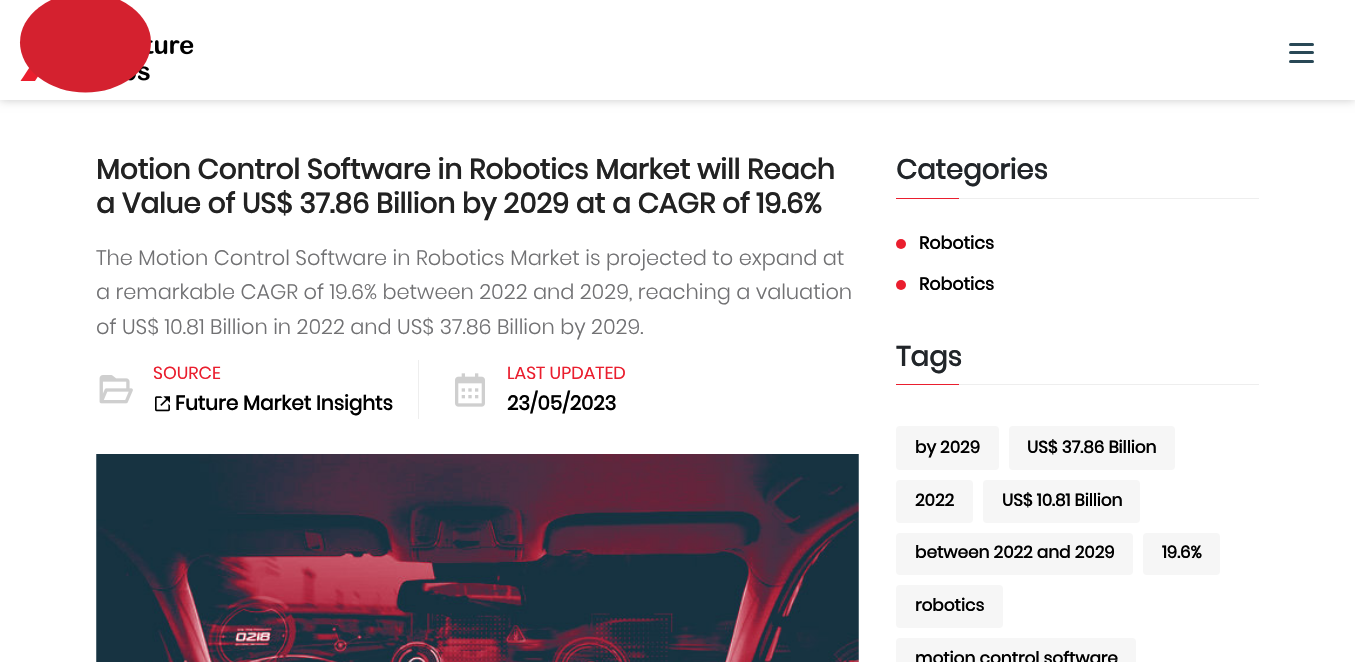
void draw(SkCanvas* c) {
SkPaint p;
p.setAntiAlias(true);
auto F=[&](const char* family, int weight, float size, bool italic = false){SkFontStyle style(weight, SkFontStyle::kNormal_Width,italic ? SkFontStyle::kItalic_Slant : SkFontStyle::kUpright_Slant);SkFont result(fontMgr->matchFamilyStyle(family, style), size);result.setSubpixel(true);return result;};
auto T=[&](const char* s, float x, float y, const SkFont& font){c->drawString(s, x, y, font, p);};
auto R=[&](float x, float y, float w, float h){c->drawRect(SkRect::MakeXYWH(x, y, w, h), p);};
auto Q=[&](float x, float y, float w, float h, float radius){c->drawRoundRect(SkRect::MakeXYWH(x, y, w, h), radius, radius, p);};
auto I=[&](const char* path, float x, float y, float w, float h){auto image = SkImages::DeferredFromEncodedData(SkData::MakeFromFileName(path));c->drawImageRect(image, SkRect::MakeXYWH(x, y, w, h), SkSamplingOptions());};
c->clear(0xffffffff);
p.setColor(0x36000000);
p.setMaskFilter(SkMaskFilter::MakeBlur(kNormal_SkBlurStyle, 4.5));
c->drawRect(SkRect::MakeXYWH(0,0,1355,100),p);
p.setMaskFilter(nullptr);
p.setColor(0xffffffff);
R(0,0,1355,100);
I("1.png",20,40,174,41);
p.setColor(0xffd4212f);
c->drawOval(SkRect::MakeXYWH(20,-7.5,131,100),p);
p.setColor(0xff294856);
Q(1289,43,25,3,1.5);
Q(1289,51,25,3,1.5);
Q(1289,60,25,3,1.5);
auto f1 = F("Poppins",700,27.85);
p.setColor(0xff222222);
T("Motion Control Software in Robotics Market will Reach",96,179,f1);
T("a Value of US$ 37.86 Billion by 2029 at a CAGR of 19.6%",96,213,f1);
auto f2 = F("Poppins",300,20.9);
p.setColor(0xff717173);
T("The Motion Control Software in Robotics Market is projected to expand at",96,265,f2);
T("a remarkable CAGR of 19.6% between 2022 and 2029, reaching a valuation",96,299,f2);
T("of US$ 10.81 Billion in 2022 and US$ 37.86 Billion by 2029.",96,334,f2);
p.setColor(0xffeeeeee);
R(418,360,1,59);
auto f3 = F("Poppins",400,17.5);
p.setColor(0xffea1e2e);
T("SOURCE",153,379,f3);
I("2.png",99,375,34,29);
I("3.png",155,396,15,16);
auto f4 = F("Poppins",700,20);
p.setColor(0xff000000);
T("Future Market Insights",175,410,f4);
I("4.png",455,373,30,34);
p.setColor(0xffea1e2e);
T("LAST UPDATED",507,379,f3);
p.setColor(0xff000000);
T("23/05/2023",507,410,f4);
I("5.png",96,454,763,208);
p.setColor(0xffeeeeee);
R(959,198,300,1);
auto f5 = F("Poppins",700,27.5);
p.setColor(0xff212529);
T("Categories",896,179,f5);
p.setColor(0xffea1e2e);
R(896,198,63,1);
c->drawCircle(901,244,5,p);
auto f6 = F("Poppins",700,17.5);
p.setColor(0xff000000);
T("Robotics",919,249,f6);
p.setColor(0xffea1e2e);
c->drawCircle(901,285,5,p);
p.setColor(0xff000000);
T("Robotics",919,290,f6);
p.setColor(0xffeeeeee);
R(959,384,300,1);
p.setColor(0xff212529);
T("Tags",896,366,f5);
p.setColor(0xffea1e2e);
R(896,384,63,1);
p.setColor(0xfff6f6f6);
Q(896,426,103,44,4);
auto f7 = F("Poppins",700,16.9);
p.setColor(0xff000000);
T("by 2029",915,453,f7);
p.setColor(0xfff6f6f6);
Q(1009,426,166,44,4);
p.setColor(0xff000000);
T("US$ 37.86 Billion",1027,453,f7);
p.setColor(0xfff6f6f6);
Q(896,480,77,43,4);
p.setColor(0xff000000);
T("2022",915,506,f7);
p.setColor(0xfff6f6f6);
Q(983,480,157,43,4);
p.setColor(0xff000000);
T("US$ 10.81 Billion",1002,506,f7);
p.setColor(0xfff6f6f6);
Q(896,533,237,42,4);
p.setColor(0xff000000);
T("between 2022 and 2029",915,558,f7);
p.setColor(0xfff6f6f6);
Q(1143,533,77,42,4);
p.setColor(0xff000000);
T("19.6%",1162,558,f7);
p.setColor(0xfff6f6f6);
Q(896,585,107,43,4);
p.setColor(0xff000000);
T("robotics",915,611,f7);
p.setColor(0xfff6f6f6);
Q(896,638,240,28,4);
p.setColor(0xff000000);
T("motion control software",915,664,f7);
}
